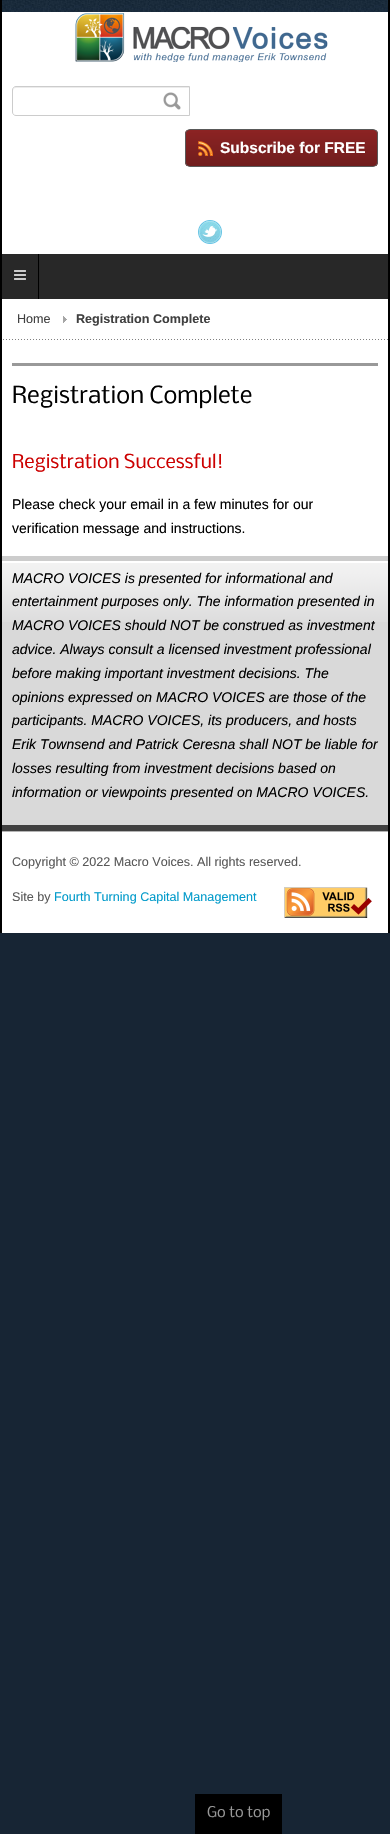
void draw(SkCanvas* c) {
SkPaint p;
p.setAntiAlias(true);
auto F=[&](const char* family, int weight, float size, bool italic = false){SkFontStyle style(weight, SkFontStyle::kNormal_Width,italic ? SkFontStyle::kItalic_Slant : SkFontStyle::kUpright_Slant);SkFont result(fontMgr->matchFamilyStyle(family, style), size);result.setSubpixel(true);return result;};
auto T=[&](const char* s, float x, float y, const SkFont& font){c->drawString(s, x, y, font, p);};
auto R=[&](float x, float y, float w, float h){c->drawRect(SkRect::MakeXYWH(x, y, w, h), p);};
auto I=[&](const char* path, float x, float y, float w, float h){auto image = SkImages::DeferredFromEncodedData(SkData::MakeFromFileName(path));c->drawImageRect(image, SkRect::MakeXYWH(x, y, w, h), SkSamplingOptions());};
auto P=[&](const char* data, bool evenOdd = false){SkPath result = *SkParsePath::FromSVGString(data);if (evenOdd) result.setFillType(SkPathFillType::kEvenOdd);return result;};
c->clear(0xff172534);
I("1.png",2,0,386,12);
p.setColor(0xff000000);
R(388,0,2,933);
R(0,0,2,933);
p.setColor(0xffffffff);
R(2,12,386,921);
I("2.png",75,13,253,49);
I("3.png",163,92,18,18);
p.setColor(0xffececec);
c->drawPath(P("M16 88h173v-1h-174c-2 1-2 2-2 4c0-2 1-3 3-3z"),p);
p.setStroke(true);
p.setStrokeWidth(1);
p.setColor(0xffcccccc);
c->drawPath(P("M16 86.5h173.5v29h-173.5c-2 0-3.5-1.5-3.5-3.5v-22c0-2 1.5-3.5 3.5-3.5z"),p);
c->save();
c->clipPath(P("M190 129h183c3 0 5 2 5 5v28c0 3-2 5-5 5h-183c-3 0-5-2-5-5v-28c0-3 2-5 5-5z"),true);
p.setStroke(false);
{
const SkColor colors[] = {0xff8c2323,0xff701d1d};
const float stops[] = {0,1};
const SkPoint ends[] = {{282,130}, {282,166}};
p.setShader(SkGradientShader::MakeLinear(ends, colors, stops, 2, SkTileMode::kClamp));
p.setAlpha(255);
}
R(185,130,193,36);
c->restore();
p.setStroke(true);
p.setShader(nullptr);
p.setColor(0xff595959);
c->drawRoundRect(SkRect::MakeXYWH(185.5,129.5,192,37),4.5,4.5,p);
I("4.png",198,141,15,15);
auto f1 = F("Liberation Sans",700,15.5);
p.setStroke(false);
p.setColor(0xffffffff);
T("Subscribe for FREE",220,153,f1);
I("5.png",198,220,24,24);
p.setColor(0xff282828);
R(2,254,386,45);
p.setColor(0xff000000);
R(38,254,1,45);
I("6.png",14,270,12,10);
p.setColor(0xffcccccc);
R(2,556,386,5);
I("7.png",3,339,385,1);
I("8.png",63,316,4,7);
auto f2 = F("Liberation Sans",400,12.6);
p.setColor(0xff404040);
T("Home",17,323,f2);
auto f3 = F("Liberation Sans",700,12.6);
T("Registration Complete",76,323,f3);
p.setColor(0xff999999);
R(12,363,366,3);
auto f4 = F("Nobile",400,22.4);
p.setColor(0xff000000);
T("Registration Complete",12,403,f4);
auto f5 = F("Nobile",400,18.25);
p.setColor(0xffcc0000);
T("Registration Successful!",12,468,f5);
auto f6 = F("Liberation Sans",400,14);
p.setColor(0xff000000);
T("Please check your email in a few minutes for our",12,509,f6);
T("verification message and instructions.",12,533,f6);
p.setColor(0xffd9d9d9);
R(2,622,386,203);
I("9.png",2,563,386,59);
p.setColor(0xff404040);
R(2,825,386,6);
auto f7 = F("Liberation Sans",400,14,true);
p.setColor(0xff000000);
T("MACRO VOICES is presented for informational and",12,583,f7);
T("entertainment purposes only. The information presented in",12,606,f7);
T("MACRO VOICES should NOT be construed as investment",12,630,f7);
T("advice. Always consult a licensed investment professional",12,654,f7);
T("before making important investment decisions. The",12,678,f7);
T("opinions expressed on MACRO VOICES are those of the",12,702,f7);
T("participants. MACRO VOICES, its producers, and hosts",12,725,f7);
T("Erik Townsend and Patrick Ceresna shall NOT be liable for",12,749,f7);
T("losses resulting from investment decisions based on",12,773,f7);
T("information or viewpoints presented on MACRO VOICES.",12,797,f7);
p.setColor(0xffb3b3b3);
R(2,831,386,1);
p.setColor(0xff595959);
T("Copyright © 2022 Macro Voices. All rights reserved.",12,866,f2);
T("Site by",12,901,f2);
p.setColor(0xff009aca);
T("Fourth Turning Capital Management",54,901,f2);
I("10.png",284,887,88,31);
p.setColor(0xff000000);
R(195,1794,87,40);
auto f8 = F("Nobile",400,14);
p.setColor(0xff999999);
T("Go to top",207,1817,f8);
}
